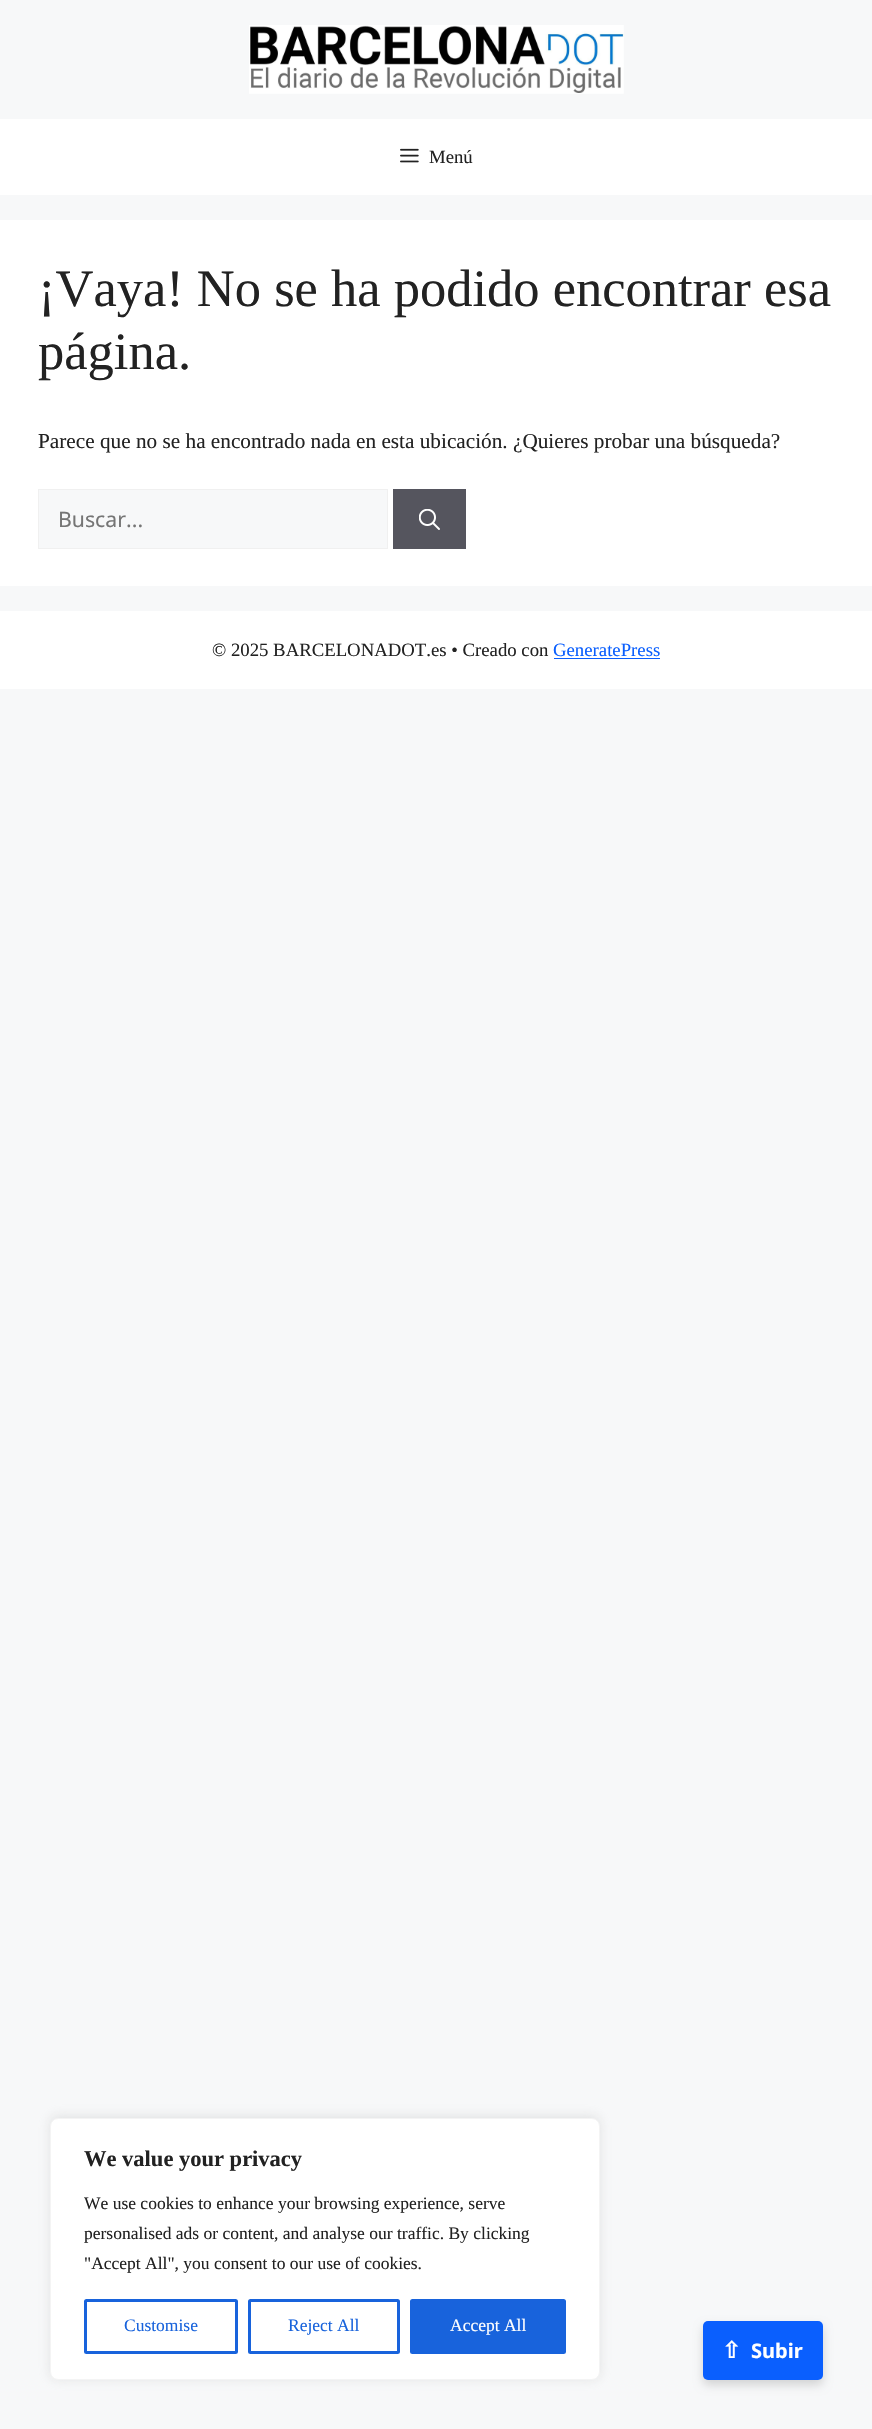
void draw(SkCanvas* c) {
SkPaint p;
p.setAntiAlias(true);
auto F=[&](const char* family, int weight, float size, bool italic = false){SkFontStyle style(weight, SkFontStyle::kNormal_Width,italic ? SkFontStyle::kItalic_Slant : SkFontStyle::kUpright_Slant);SkFont result(fontMgr->matchFamilyStyle(family, style), size);result.setSubpixel(true);return result;};
auto T=[&](const char* s, float x, float y, const SkFont& font){c->drawString(s, x, y, font, p);};
auto R=[&](float x, float y, float w, float h){c->drawRect(SkRect::MakeXYWH(x, y, w, h), p);};
auto Q=[&](float x, float y, float w, float h, float radius){c->drawRoundRect(SkRect::MakeXYWH(x, y, w, h), radius, radius, p);};
auto I=[&](const char* path, float x, float y, float w, float h){auto image = SkImages::DeferredFromEncodedData(SkData::MakeFromFileName(path));c->drawImageRect(image, SkRect::MakeXYWH(x, y, w, h), SkSamplingOptions());};
c->clear(0xfff7f8f9);
I("1.png",249,25,375,69);
p.setColor(0xffffffff);
R(0,119,872,76);
I("2.png",400,148,19,15);
auto f1 = F("Liberation Serif",400,18.75);
p.setColor(0xff222222);
T("Menú",429,163,f1);
p.setColor(0xffffffff);
R(0,220,872,366);
auto f2 = F("Liberation Serif",400,52.5);
p.setColor(0xff222222);
T("¡Vaya! No se ha podido encontrar esa",38,306,f2);
T("página.",38,369,f2);
auto f3 = F("Liberation Serif",400,21.25);
T("Parece que no se ha encontrado nada en esta ubicación. ¿Quieres probar una búsqueda?",38,448,f3);
p.setColor(0xfff7f8f9);
c->drawRect(SkRect::MakeXYWH(38.5,489.5,349,59),p);
p.setStroke(true);
p.setStrokeWidth(1);
p.setColor(0xfff0f0f0);
c->drawRect(SkRect::MakeXYWH(38.5,489.5,349,59),p);
auto f4 = F("Noto Sans",400,21.25);
p.setStroke(false);
p.setColor(0xff757575);
T("Buscar...",58,527,f4);
p.setColor(0xff55555e);
R(393,489,73,60);
I("3.png",419,509,21,21);
p.setColor(0xffffffff);
R(0,611,872,78);
p.setColor(0xff222222);
T("© 2025 BARCELONADOT.es • Creado con",212,656,f1);
p.setColor(0xff0a5ffe);
T("GeneratePress",553,656,f1);
R(554,658,106,1);
p.setColor(0x4dacabab);
p.setMaskFilter(SkMaskFilter::MakeBlur(kNormal_SkBlurStyle, 6));
c->drawRoundRect(SkRect::MakeXYWH(50,2116,550,263),8,8,p);
p.setMaskFilter(nullptr);
p.setColor(0xffffffff);
c->drawRoundRect(SkRect::MakeXYWH(50.5,2118.5,549,261),7.5,7.5,p);
p.setStroke(true);
p.setColor(0xfff4f4f4);
c->drawRoundRect(SkRect::MakeXYWH(50.5,2118.5,549,261),7.5,7.5,p);
auto f5 = F("Liberation Serif",700,22.5);
p.setStroke(false);
p.setColor(0xff222222);
T("We value your privacy",84,2166,f5);
auto f6 = F("Liberation Serif",400,17.5);
T("We use cookies to enhance your browsing experience, serve",84,2209,f6);
T("personalised ads or content, and analyse our traffic. By clicking",84,2239,f6);
T("\"Accept All\", you consent to our use of cookies.",84,2269,f6);
p.setStroke(true);
p.setStrokeWidth(3);
p.setColor(0xff1863dc);
c->drawRoundRect(SkRect::MakeXYWH(85.5,2300.5,151,52),1,1,p);
p.setStroke(false);
T("Customise",124,2331,f6);
p.setStroke(true);
c->drawRoundRect(SkRect::MakeXYWH(249.5,2300.5,149,52),1,1,p);
p.setStroke(false);
T("Reject All",288,2331,f6);
c->drawRoundRect(SkRect::MakeXYWH(411.5,2300.5,153,52),1,1,p);
p.setStroke(true);
c->drawRoundRect(SkRect::MakeXYWH(411.5,2300.5,153,52),1,1,p);
p.setStroke(false);
p.setColor(0xffffffff);
T("Accept All",450,2331,f6);
p.setColor(0x26000000);
p.setMaskFilter(SkMaskFilter::MakeBlur(kNormal_SkBlurStyle, 5));
c->drawRoundRect(SkRect::MakeXYWH(703,2326,120,59),5,5,p);
p.setMaskFilter(nullptr);
p.setColor(0xff0a5ffe);
Q(703,2321,120,59,5);
auto f7 = F("DejaVu Sans",700,22.5);
p.setColor(0xffffffff);
T("⇧",722,2358,f7);
auto f8 = F("Noto Sans",700,20);
T("Subir",751,2358,f8);
}
